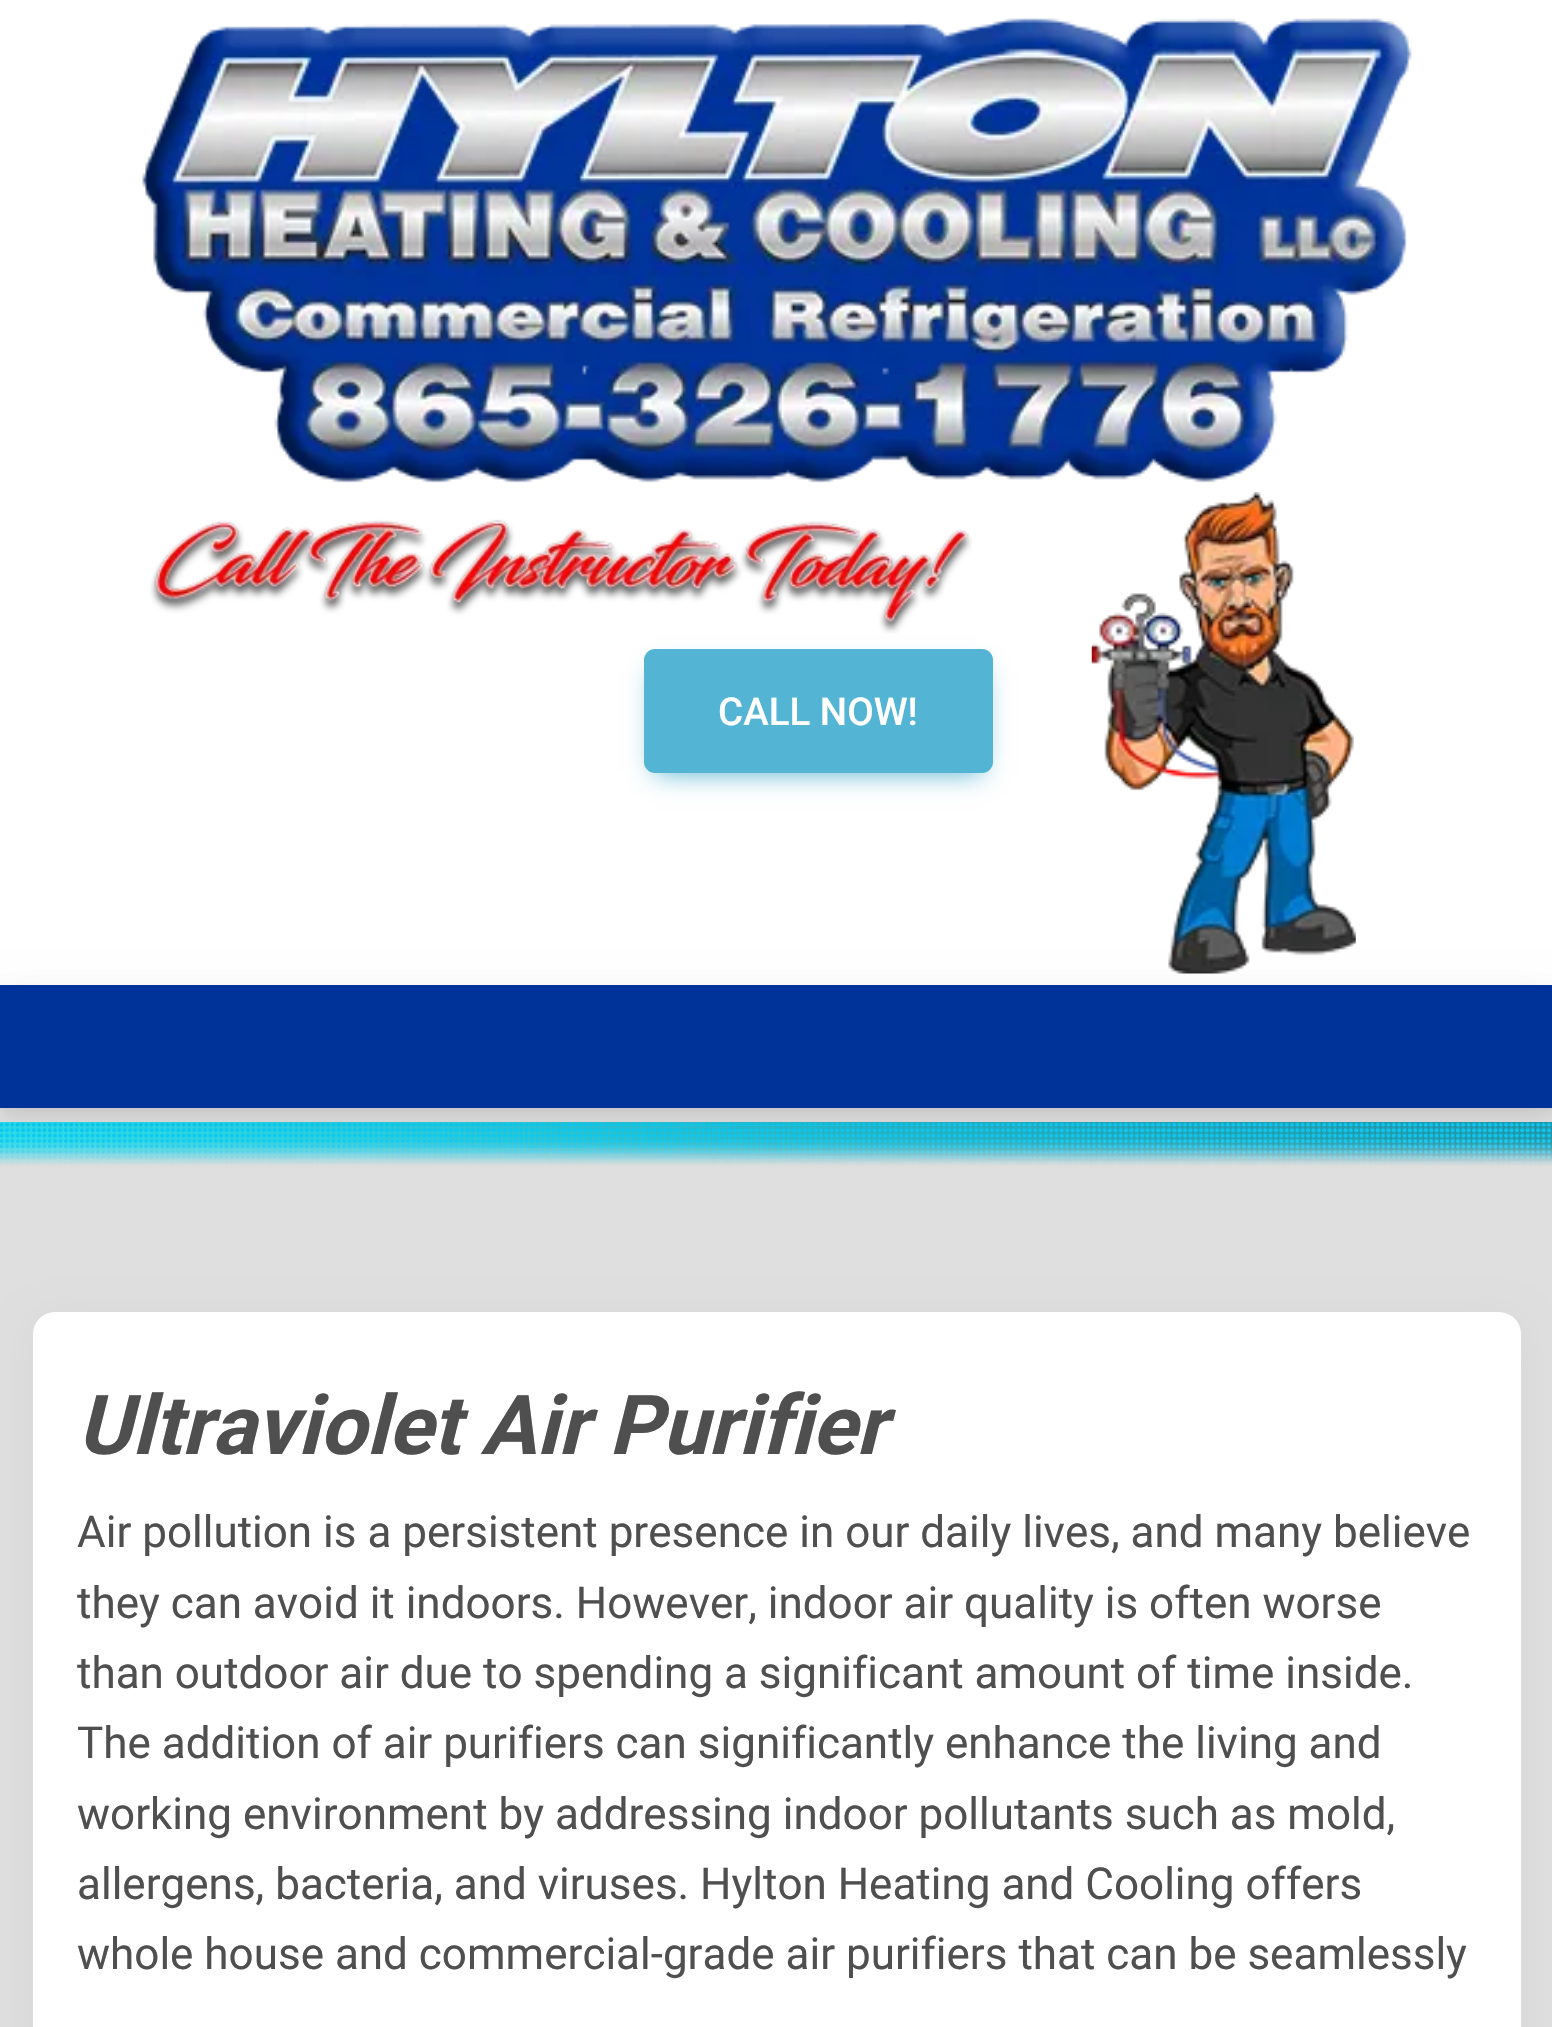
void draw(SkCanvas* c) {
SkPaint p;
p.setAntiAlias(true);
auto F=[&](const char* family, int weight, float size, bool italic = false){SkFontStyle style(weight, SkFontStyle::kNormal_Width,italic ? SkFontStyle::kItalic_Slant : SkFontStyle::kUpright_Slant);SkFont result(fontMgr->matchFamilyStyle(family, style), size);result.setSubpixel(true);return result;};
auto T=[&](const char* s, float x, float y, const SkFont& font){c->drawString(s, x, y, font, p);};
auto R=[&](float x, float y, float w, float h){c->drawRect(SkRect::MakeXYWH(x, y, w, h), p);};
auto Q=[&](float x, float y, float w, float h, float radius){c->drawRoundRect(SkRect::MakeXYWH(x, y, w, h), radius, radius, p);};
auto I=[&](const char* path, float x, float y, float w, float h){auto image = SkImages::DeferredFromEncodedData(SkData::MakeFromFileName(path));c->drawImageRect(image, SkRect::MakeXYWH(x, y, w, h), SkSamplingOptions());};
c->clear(0xffdfdfdf);
p.setColor(0xffffffff);
R(0,0,1552,985);
I("1.png",142,18,1270,465);
p.setColor(0xff54b4d3);
p.setMaskFilter(SkMaskFilter::MakeBlur(kNormal_SkBlurStyle, 12.5));
c->drawRect(SkRect::MakeXYWH(655,671,327,102),p);
p.setMaskFilter(nullptr);
I("2.png",150,519,822,115);
Q(644,649,349,124,11);
auto f1 = F("Roboto",500,38.5);
p.setColor(0xffffffff);
T("CALL NOW!",718,725,f1);
I("3.png",1091,492,265,482);
I("4.png",0,1122,1552,44);
p.setColor(0x0d000000);
p.setMaskFilter(SkMaskFilter::MakeBlur(kNormal_SkBlurStyle, 5.5));
c->drawRect(SkRect::MakeXYWH(0,990,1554,124),p);
p.setMaskFilter(nullptr);
p.setColor(0x12000000);
p.setMaskFilter(SkMaskFilter::MakeBlur(kNormal_SkBlurStyle, 16.5));
c->drawRect(SkRect::MakeXYWH(0,996,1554,123),p);
p.setMaskFilter(nullptr);
p.setColor(0xff003399);
R(0,985,1552,123);
p.setColor(0x12000000);
p.setMaskFilter(SkMaskFilter::MakeBlur(kNormal_SkBlurStyle, 20.5));
c->drawRoundRect(SkRect::MakeXYWH(41,1326,1472,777),14,14,p);
p.setMaskFilter(nullptr);
p.setColor(0xffffffff);
Q(33,1312,1488,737,22);
auto f2 = F("Roboto",700,82.5,true);
p.setColor(0xff4f4f4f);
T("Ultraviolet Air Purifier",77,1454,f2);
auto f3 = F("Roboto",400,44);
T("Air pollution is a persistent presence in our daily lives, and many believe",77,1547,f3);
T("they can avoid it indoors. However, indoor air quality is often worse",77,1618,f3);
T("than outdoor air due to spending a significant amount of time inside.",77,1688,f3);
T("The addition of air purifiers can significantly enhance the living and",77,1758,f3);
T("working environment by addressing indoor pollutants such as mold,",77,1829,f3);
T("allergens, bacteria, and viruses. Hylton Heating and Cooling offers",77,1899,f3);
T("whole house and commercial-grade air purifiers that can be seamlessly",77,1969,f3);
}
